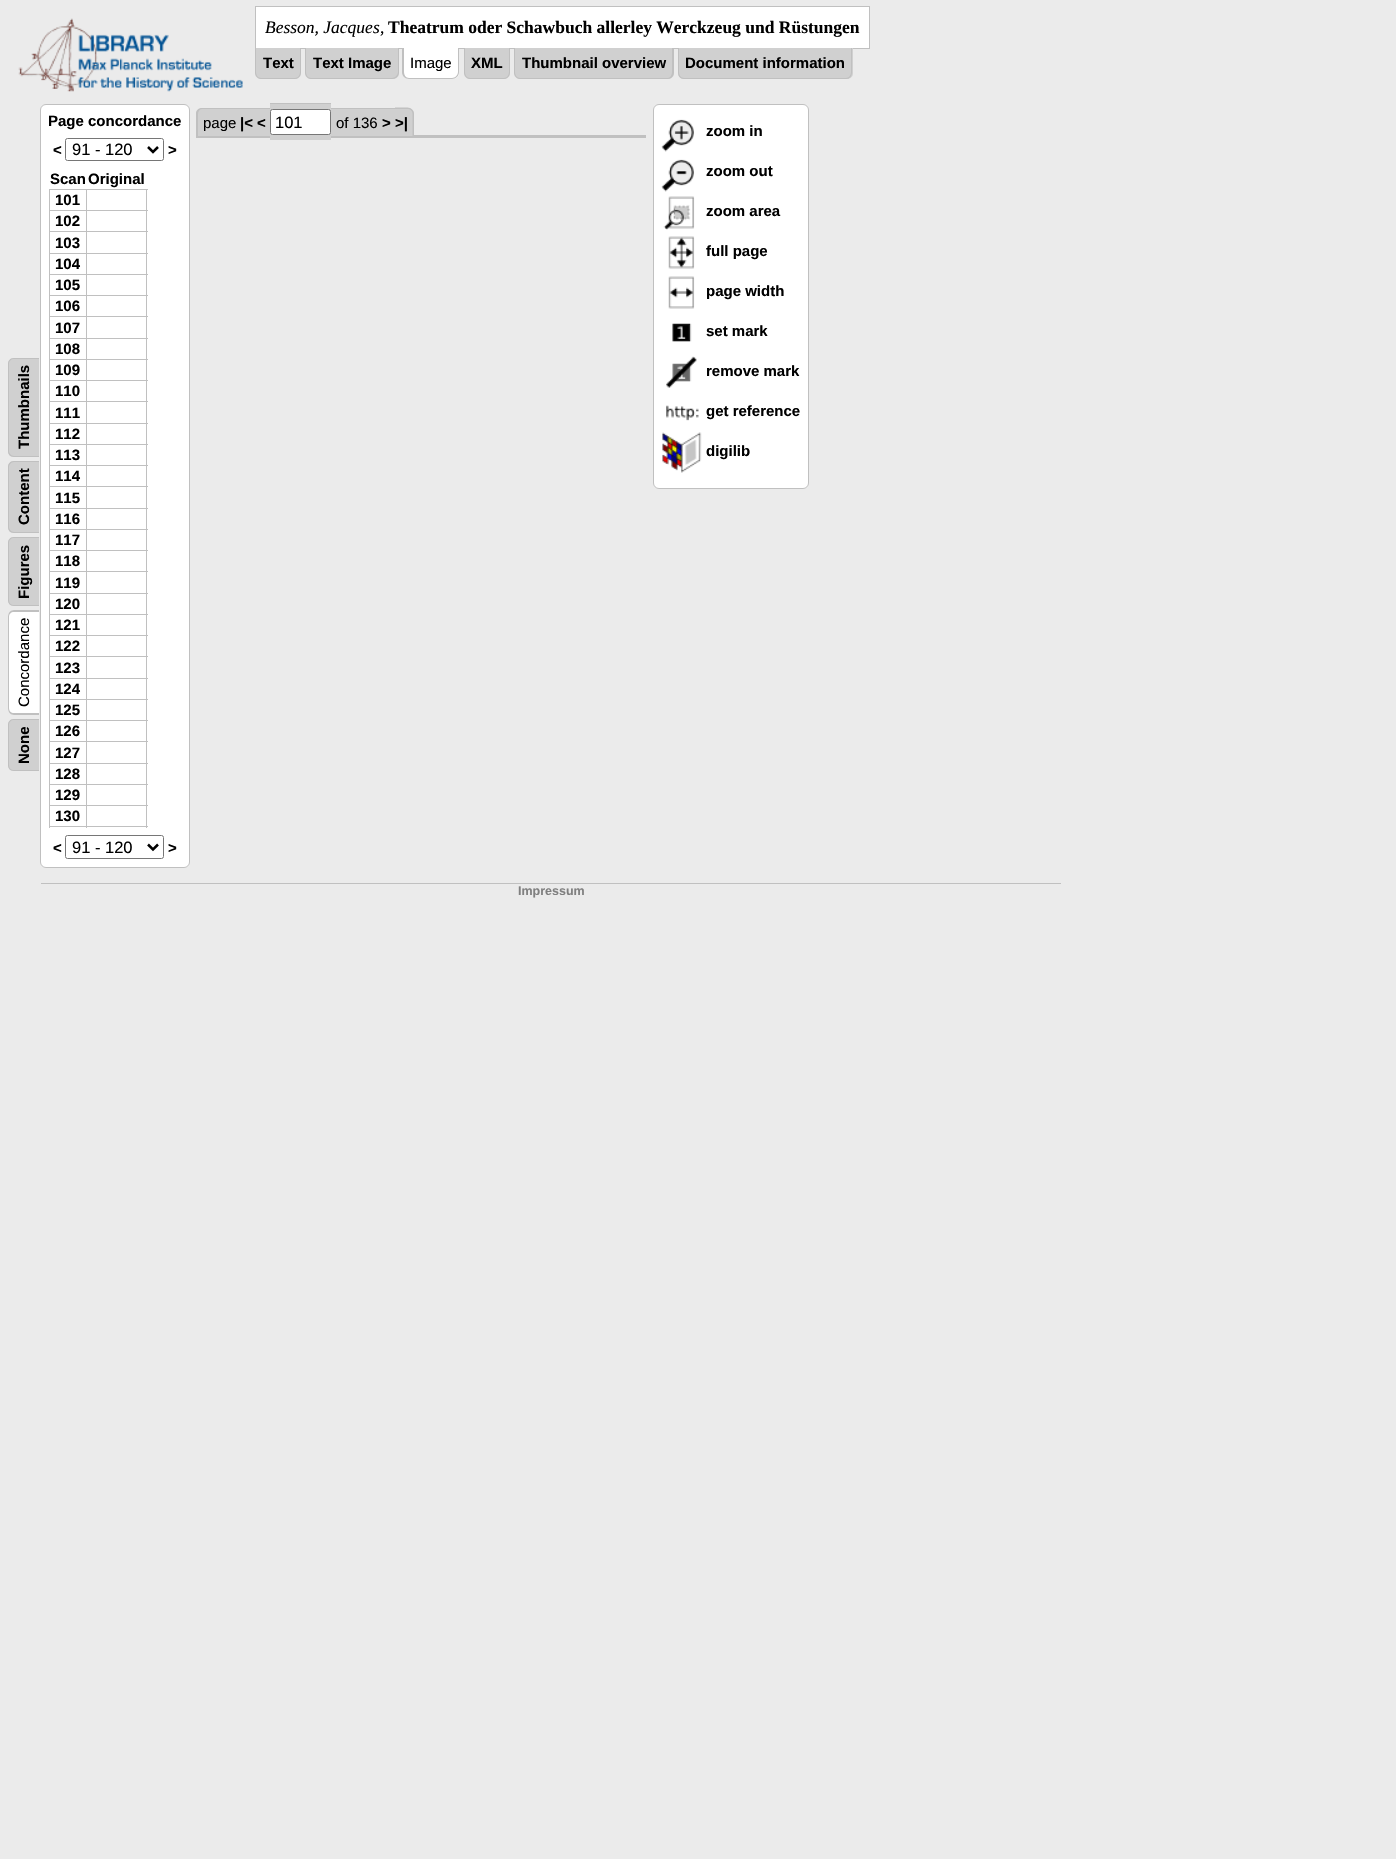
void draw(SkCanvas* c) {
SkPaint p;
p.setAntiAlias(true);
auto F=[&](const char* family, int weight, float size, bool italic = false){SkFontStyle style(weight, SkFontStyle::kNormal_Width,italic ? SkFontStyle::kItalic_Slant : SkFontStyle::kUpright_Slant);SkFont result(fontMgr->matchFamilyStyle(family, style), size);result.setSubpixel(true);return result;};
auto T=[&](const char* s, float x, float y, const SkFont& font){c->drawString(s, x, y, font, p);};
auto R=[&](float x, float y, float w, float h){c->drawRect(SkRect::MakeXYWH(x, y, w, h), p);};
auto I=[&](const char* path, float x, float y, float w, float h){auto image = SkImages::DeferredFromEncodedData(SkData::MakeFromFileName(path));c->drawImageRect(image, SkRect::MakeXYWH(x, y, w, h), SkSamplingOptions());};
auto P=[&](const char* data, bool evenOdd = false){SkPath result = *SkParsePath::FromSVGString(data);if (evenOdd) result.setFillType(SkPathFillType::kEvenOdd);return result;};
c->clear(0xffebebeb);
I("1.png",18,18,225,74);
p.setColor(0xffffffff);
c->drawRect(SkRect::MakeXYWH(255.5,6.5,614,42),p);
p.setStroke(true);
p.setStrokeWidth(1);
p.setColor(0xffc0c0c0);
c->drawRect(SkRect::MakeXYWH(255.5,6.5,614,42),p);
auto f1 = F("Liberation Serif",400,17.5,true);
p.setStroke(false);
p.setColor(0xff000000);
T("Besson, Jacques",265,33,f1);
auto f2 = F("Liberation Serif",400,17.5);
T(",",380,33,f2);
auto f3 = F("Liberation Serif",700,17.5);
T("Theatrum oder Schawbuch allerley Werckzeug und Rüstungen",388,33,f3);
p.setColor(0xffd0d0d0);
c->drawPath(P("M255 48h46v25c0 3.5-2.5 6-6 6h-34c-3.5 0-6-2.5-6-6z"),p);
p.setColor(0xffc0c0c0);
c->drawPath(P("M255 48h46v24c0 4-3 7-6 7h-34c-3 0-6-3-6-7zm1 0h44v24c0 3-2 6-5 6h-34c-3 0-5-3-5-6z",true),p);
auto f4 = F("Liberation Sans",700,15);
p.setColor(0xff000000);
T("Text",263,68,f4);
p.setColor(0xffd0d0d0);
c->drawPath(P("M305 48h94v25c0 3.5-2.5 6-6 6h-82c-3.5 0-6-2.5-6-6z"),p);
p.setColor(0xffc0c0c0);
c->drawPath(P("M305 48h94v24c0 4-3 7-7 7h-81c-3 0-6-3-6-7zm1 0h92v24c0 3-3 6-6 6h-81c-3 0-5-3-5-6z",true),p);
p.setColor(0xff000000);
T("Text Image",313,68,f4);
p.setColor(0xffffffff);
c->drawPath(P("M403 48h56v25c0 3.5-2.5 6-6 6h-44c-3.5 0-6-2.5-6-6z"),p);
p.setColor(0xffc0c0c0);
c->drawPath(P("M402 48h57v24c0 4-3 7-7 7h-43c-4 0-7-3-7-7zm2 0h54v24c0 3-3 6-6 6h-43c-3 0-5-3-5-6z",true),p);
auto f5 = F("Liberation Sans",400,15);
p.setColor(0xff000000);
T("Image",410,68,f5);
p.setColor(0xffd0d0d0);
c->drawPath(P("M464 48h46v25c0 3.5-2.5 6-6 6h-34c-3.5 0-6-2.5-6-6z"),p);
p.setColor(0xffc0c0c0);
c->drawPath(P("M464 48h46v24c0 4-3 7-6 7h-34c-3 0-6-3-6-7zm1 0h44v24c0 3-2 6-5 6h-34c-3 0-5-3-5-6z",true),p);
p.setColor(0xff000000);
T("XML",471,68,f4);
p.setColor(0xffd0d0d0);
c->drawPath(P("M514 48h160v25c0 3.5-2.5 6-6 6h-148c-3.5 0-6-2.5-6-6z"),p);
p.setColor(0xffc0c0c0);
c->drawPath(P("M514 48h160v24c0 4-3 7-6 7h-148c-3 0-6-3-6-7zm1 0h157v24c0 3-2 6-4 6h-148c-3 0-5-3-5-6z",true),p);
p.setColor(0xff000000);
T("Thumbnail overview",522,68,f4);
p.setColor(0xffd0d0d0);
c->drawPath(P("M678 48h175v25c0 3.5-2.5 6-6 6h-163c-3.5 0-6-2.5-6-6z"),p);
p.setColor(0xffc0c0c0);
c->drawPath(P("M678 48h174v24c0 4-2 7-6 7h-162c-4 0-6-3-6-7zm1 0h172v24c0 3-2 6-5 6h-162c-3 0-5-3-5-6z",true),p);
p.setColor(0xff000000);
T("Document information",685,68,f4);
p.setColor(0xffd0d0d0);
c->drawPath(P("M8 451v-87c0-3 2-6 6-6h25v99h-25c-4 0-6-3-6-6z"),p);
p.setColor(0xffc0c0c0);
c->drawPath(P("M8 451v-87c0-3 2-6 6-6h25v99h-25c-4 0-6-3-6-6zm1 0v-87c0-3 2-5 5-5h25v97h-25c-3 0-5-3-5-5z",true),p);
p.setColor(0xff000000);
c->save();
c->rotate(-90,29,449);
T("Thumbnails",29,449,f4);
c->restore();
p.setColor(0xffd0d0d0);
c->drawPath(P("M8 527v-60c0-3 2-6 6-6h25v72h-25c-4 0-6-3-6-6z"),p);
p.setColor(0xffc0c0c0);
c->drawPath(P("M8 527v-60c0-3 2-6 6-6h25v72h-25c-4 0-6-3-6-6zm1 0v-60c0-2 2-5 5-5h25v70h-25c-3 0-5-3-5-5z",true),p);
p.setColor(0xff000000);
c->save();
c->rotate(-90,29,525);
T("Content",29,525,f4);
c->restore();
p.setColor(0xffd0d0d0);
c->drawPath(P("M8 600v-57c0-3 2-6 6-6h25v69h-25c-4 0-6-3-6-6z"),p);
p.setColor(0xffc0c0c0);
c->drawPath(P("M8 600v-57c0-3 2-6 6-6h25v69h-25c-4 0-6-3-6-6zm1 0v-57c0-3 2-5 5-5h25v67h-25c-3 0-5-2-5-5z",true),p);
p.setColor(0xff000000);
c->save();
c->rotate(-90,29,599);
T("Figures",29,599,f4);
c->restore();
p.setColor(0xffffffff);
c->drawPath(P("M8 708v-91c0-4 2-7 6-7h25v105h-25c-4 0-6-3-6-7z"),p);
p.setColor(0xffc0c0c0);
c->drawPath(P("M8 708v-91c0-4 2-7 6-7h25v105h-25c-4 0-6-3-6-7zm1 0v-91c0-3 2-5 5-5h25v101h-25c-3 0-5-2-5-5z",true),p);
p.setColor(0xff000000);
c->save();
c->rotate(-90,29,707);
T("Concordance",29,707,f5);
c->restore();
p.setColor(0xffd0d0d0);
c->drawPath(P("M8 765v-40c0-3 2-6 6-6h25v52h-25c-4 0-6-3-6-6z"),p);
p.setColor(0xffc0c0c0);
c->drawPath(P("M8 765v-40c0-3 2-6 6-6h25v52h-25c-4 0-6-3-6-6zm1 0v-40c0-3 2-5 5-5h25v50h-25c-3 0-5-2-5-5z",true),p);
p.setColor(0xff000000);
c->save();
c->rotate(-90,29,764);
T("None",29,764,f4);
c->restore();
p.setColor(0xffffffff);
c->drawRoundRect(SkRect::MakeXYWH(40.5,104.5,149,763),5.5,5.5,p);
p.setStroke(true);
p.setColor(0xffc0c0c0);
c->drawRoundRect(SkRect::MakeXYWH(40.5,104.5,149,763),5.5,5.5,p);
p.setStroke(false);
p.setColor(0xff000000);
T("Page concordance",48,126,f4);
T("<",53,155,f4);
p.setStroke(true);
p.setColor(0xff767676);
c->drawRoundRect(SkRect::MakeXYWH(65.5,138.5,98,22),2,2,p);
p.setStrokeWidth(2.5);
p.setColor(0xff000000);
c->drawPath(P("M148 147l5 5l5-5"),p);
auto f6 = F("Liberation Sans",400,16.5);
p.setStroke(false);
T("91 - 120",72,155,f6);
T(">",168,155,f4);
T("Scan",50,184,f4);
T("Original",88,184,f4);
p.setColor(0xffc0c0c0);
R(86,189,62,1);
R(86,210,62,1);
R(86,231,62,1);
R(86,253,62,1);
R(86,274,62,1);
R(86,295,62,1);
R(86,316,62,1);
R(86,338,62,1);
R(86,359,62,1);
R(86,380,62,1);
R(86,401,62,1);
R(86,423,62,1);
R(86,444,62,1);
R(86,465,62,1);
R(86,486,62,1);
R(86,508,62,1);
R(86,529,62,1);
R(86,550,62,1);
R(86,571,62,1);
R(86,593,62,1);
R(86,614,62,1);
R(86,635,62,1);
R(86,656,62,1);
R(86,678,62,1);
R(86,699,62,1);
R(86,720,62,1);
R(86,741,62,1);
R(86,763,62,1);
R(86,784,62,1);
R(86,805,62,1);
R(146,805,1,23);
R(86,826,62,1);
R(86,805,1,23);
R(49,805,39,1);
R(86,784,1,22);
R(49,784,39,1);
R(86,763,1,22);
R(49,763,39,1);
R(86,741,1,23);
R(49,741,39,1);
R(86,720,1,23);
R(49,720,39,1);
R(86,699,1,22);
R(49,699,39,1);
R(86,678,1,22);
R(49,678,39,1);
R(86,656,1,23);
R(49,656,39,1);
R(86,635,1,23);
R(49,635,39,1);
R(86,614,1,22);
R(49,614,39,1);
R(86,593,1,22);
R(49,593,39,1);
R(86,571,1,23);
R(49,571,39,1);
R(86,550,1,23);
R(49,550,39,1);
R(86,529,1,22);
R(49,529,39,1);
R(86,508,1,22);
R(49,508,39,1);
R(86,486,1,23);
R(49,486,39,1);
R(86,465,1,23);
R(49,465,39,1);
R(86,444,1,22);
R(49,444,39,1);
R(86,423,1,22);
R(49,423,39,1);
R(86,401,1,23);
R(49,401,39,1);
R(86,380,1,23);
R(49,380,39,1);
R(86,359,1,22);
R(49,359,39,1);
R(86,338,1,22);
R(49,338,39,1);
R(86,316,1,23);
R(49,316,39,1);
R(86,295,1,23);
R(49,295,39,1);
R(86,274,1,22);
R(49,274,39,1);
R(86,253,1,22);
R(49,253,39,1);
R(86,231,1,23);
R(49,231,39,1);
R(86,210,1,23);
R(49,210,39,1);
R(86,189,1,22);
R(49,189,39,1);
R(49,826,39,1);
R(49,805,1,23);
R(49,784,1,22);
R(49,763,1,22);
R(49,741,1,23);
R(49,720,1,23);
R(49,699,1,22);
R(49,678,1,22);
R(49,656,1,23);
R(49,635,1,23);
R(49,614,1,22);
R(49,593,1,22);
R(49,571,1,23);
R(49,550,1,23);
R(49,529,1,22);
R(49,508,1,22);
R(49,486,1,23);
R(49,465,1,23);
R(49,444,1,22);
R(49,423,1,22);
R(49,401,1,23);
R(49,380,1,23);
R(49,359,1,22);
R(49,338,1,22);
R(49,316,1,23);
R(49,295,1,23);
R(49,274,1,22);
R(49,253,1,22);
R(49,231,1,23);
R(49,210,1,23);
R(49,189,1,22);
p.setColor(0xff000000);
T("101",55,205,f4);
p.setColor(0xffc0c0c0);
R(146,784,1,22);
R(146,763,1,22);
R(146,741,1,23);
R(146,720,1,23);
R(146,699,1,22);
R(146,678,1,22);
R(146,656,1,23);
R(146,635,1,23);
R(146,614,1,22);
R(146,593,1,22);
R(146,571,1,23);
R(146,550,1,23);
R(146,529,1,22);
R(146,508,1,22);
R(146,486,1,23);
R(146,465,1,23);
R(146,444,1,22);
R(146,423,1,22);
R(146,401,1,23);
R(146,380,1,23);
R(146,359,1,22);
R(146,338,1,22);
R(146,316,1,23);
R(146,295,1,23);
R(146,274,1,22);
R(146,253,1,22);
R(146,231,1,23);
R(146,210,1,23);
R(146,189,1,22);
p.setColor(0xff000000);
T("102",55,226,f4);
T("103",55,248,f4);
T("104",55,269,f4);
T("105",55,290,f4);
T("106",55,311,f4);
T("107",55,333,f4);
T("108",55,354,f4);
T("109",55,375,f4);
T("110",55,396,f4);
T("111",55,418,f4);
T("112",55,439,f4);
T("113",55,460,f4);
T("114",55,481,f4);
T("115",55,503,f4);
T("116",55,524,f4);
T("117",55,545,f4);
T("118",55,566,f4);
T("119",55,588,f4);
T("120",55,609,f4);
T("121",55,630,f4);
T("122",55,651,f4);
T("123",55,673,f4);
T("124",55,694,f4);
T("125",55,715,f4);
T("126",55,736,f4);
T("127",55,758,f4);
T("128",55,779,f4);
T("129",55,800,f4);
T("130",55,821,f4);
T("<",53,853,f4);
p.setStroke(true);
p.setStrokeWidth(1);
p.setColor(0xff767676);
c->drawRoundRect(SkRect::MakeXYWH(65.5,835.5,98,23),2,2,p);
p.setStrokeWidth(2.5);
p.setColor(0xff000000);
c->drawPath(P("M148 844.5l5 5l5-5"),p);
p.setStroke(false);
T("91 - 120",72,853,f6);
T(">",168,853,f4);
p.setColor(0xffc0c0c0);
R(196,135,450,3);
p.setColor(0xffd0d0d0);
c->drawPath(P("M202 108h38v28h-44v-22c0-3.5 2.5-6 6-6z"),p);
p.setColor(0xffc0c0c0);
c->drawPath(P("M202 108h38v28h-44v-22c0-4 3-6 6-6zm0 1h38v27h-42v-22c0-3 2-5 4-5z",true),p);
p.setColor(0xffd0d0d0);
R(240,109,14,27);
p.setColor(0xffc0c0c0);
R(240,108,14,1);
p.setColor(0xffd0d0d0);
R(254,108,16,28);
p.setColor(0xffc0c0c0);
R(254,108,16,1);
p.setColor(0xffd0d0d0);
R(270,104,61,36);
p.setColor(0xffc0c0c0);
R(270,103,61,1);
p.setColor(0xffd0d0d0);
R(331,108,5,28);
p.setColor(0xffc0c0c0);
R(331,108,59,1);
p.setColor(0xffd0d0d0);
R(336,109,54,27);
R(390,108,5,28);
p.setColor(0xffc0c0c0);
R(390,108,5,1);
p.setColor(0xffd0d0d0);
c->drawPath(P("M395 108h13c3.5 0 6 2.5 6 6v22h-19z"),p);
p.setColor(0xffc0c0c0);
c->drawPath(P("M395 107.5h12.5c3.5 0 6.5 3 6.5 6.5v22h-19zm0 1.5h12.5c3 0 5 2 5 5v22h-17.5z",true),p);
p.setColor(0xff000000);
T("page",203,128,f5);
T("|< <",240,128,f4);
p.setColor(0xffffffff);
c->drawRoundRect(SkRect::MakeXYWH(270.5,109.5,60,25),2,2,p);
p.setStroke(true);
p.setStrokeWidth(1);
p.setColor(0xff767676);
c->drawRoundRect(SkRect::MakeXYWH(270.5,109.5,60,25),2,2,p);
p.setStroke(false);
p.setColor(0xff000000);
T("101",275,128,f6);
T("of 136",336,128,f5);
T("> >|",382,128,f4);
p.setColor(0xffffffff);
c->drawRoundRect(SkRect::MakeXYWH(653.5,104.5,155,384),5.5,5.5,p);
p.setStroke(true);
p.setColor(0xffc0c0c0);
c->drawRoundRect(SkRect::MakeXYWH(653.5,104.5,155,384),5.5,5.5,p);
I("2.png",661,119,33,33);
p.setStroke(false);
p.setColor(0xff000000);
T("zoom in",706,136,f4);
I("3.png",661,159,33,33);
T("zoom out",706,176,f4);
I("4.png",663,196,32,34);
T("zoom area",706,216,f4);
I("5.png",668,236,27,33);
T("full page",706,256,f4);
I("6.png",668,276,27,33);
T("page width",706,296,f4);
I("7.png",672,323,20,19);
T("set mark",706,336,f4);
I("8.png",666,356,31,32);
T("remove mark",706,376,f4);
I("9.png",666,405,33,16);
T("get reference",706,416,f4);
I("10.png",662,432,40,41);
T("digilib",706,456,f4);
p.setColor(0xffc0c0c0);
R(41,883,1020,1);
auto f7 = F("Liberation Sans",700,12.5);
p.setColor(0xff808080);
T("Impressum",518,895,f7);
}
